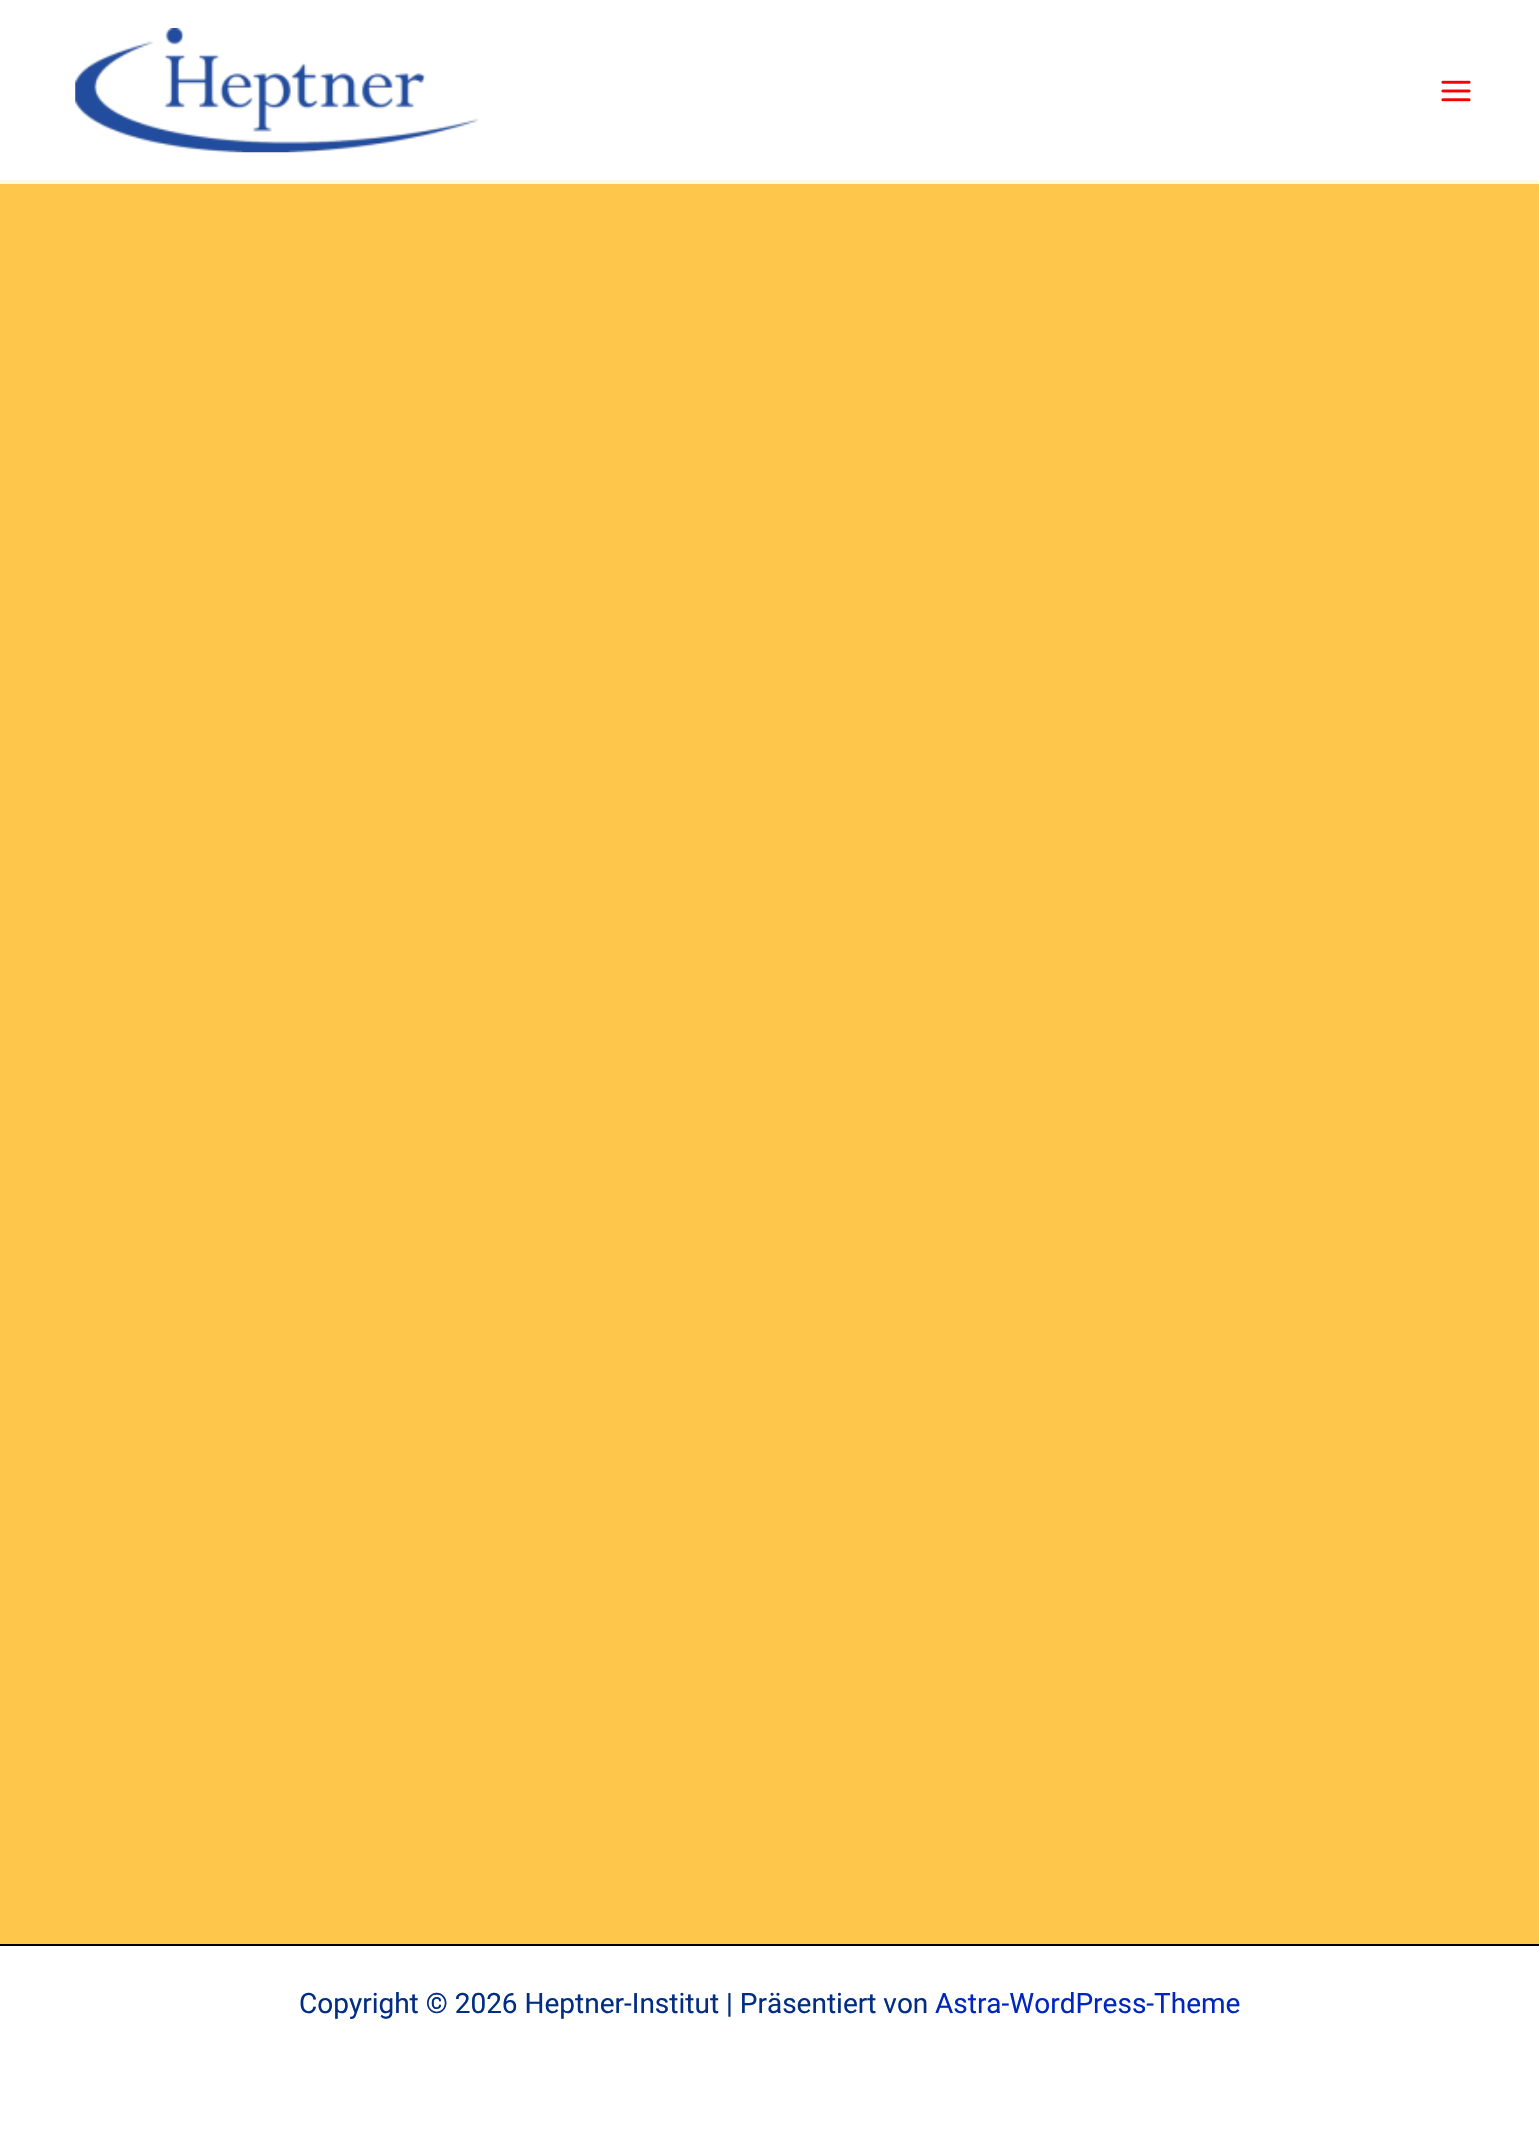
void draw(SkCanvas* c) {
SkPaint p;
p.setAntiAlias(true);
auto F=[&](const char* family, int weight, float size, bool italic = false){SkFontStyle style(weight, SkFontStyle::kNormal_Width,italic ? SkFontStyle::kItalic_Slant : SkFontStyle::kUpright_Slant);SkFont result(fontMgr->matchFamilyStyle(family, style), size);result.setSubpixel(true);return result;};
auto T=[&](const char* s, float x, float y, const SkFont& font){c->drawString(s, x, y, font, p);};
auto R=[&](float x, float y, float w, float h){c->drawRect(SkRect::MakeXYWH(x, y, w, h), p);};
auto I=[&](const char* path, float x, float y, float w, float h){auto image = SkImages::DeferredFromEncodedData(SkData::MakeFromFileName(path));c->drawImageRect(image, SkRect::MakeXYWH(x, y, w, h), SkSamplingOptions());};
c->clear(0xffffc64c);
p.setColor(0xffffffff);
R(0,0,1539,180);
p.setColor(0xfffef9e1);
R(0,180,1539,4);
I("1.png",75,28,403,125);
I("2.png",1441,80,30,22);
p.setColor(0xffffffff);
R(0,1946,1539,210);
p.setColor(0xff000000);
R(0,1944,1539,2);
auto f1 = F("Roboto",400,28);
p.setColor(0xff022d84);
T("Copyright © 2026 Heptner-Institut | Präsentiert von",299,2013,f1);
p.setColor(0xff0026c2);
T("Astra-WordPress-Theme",935,2013,f1);
}
